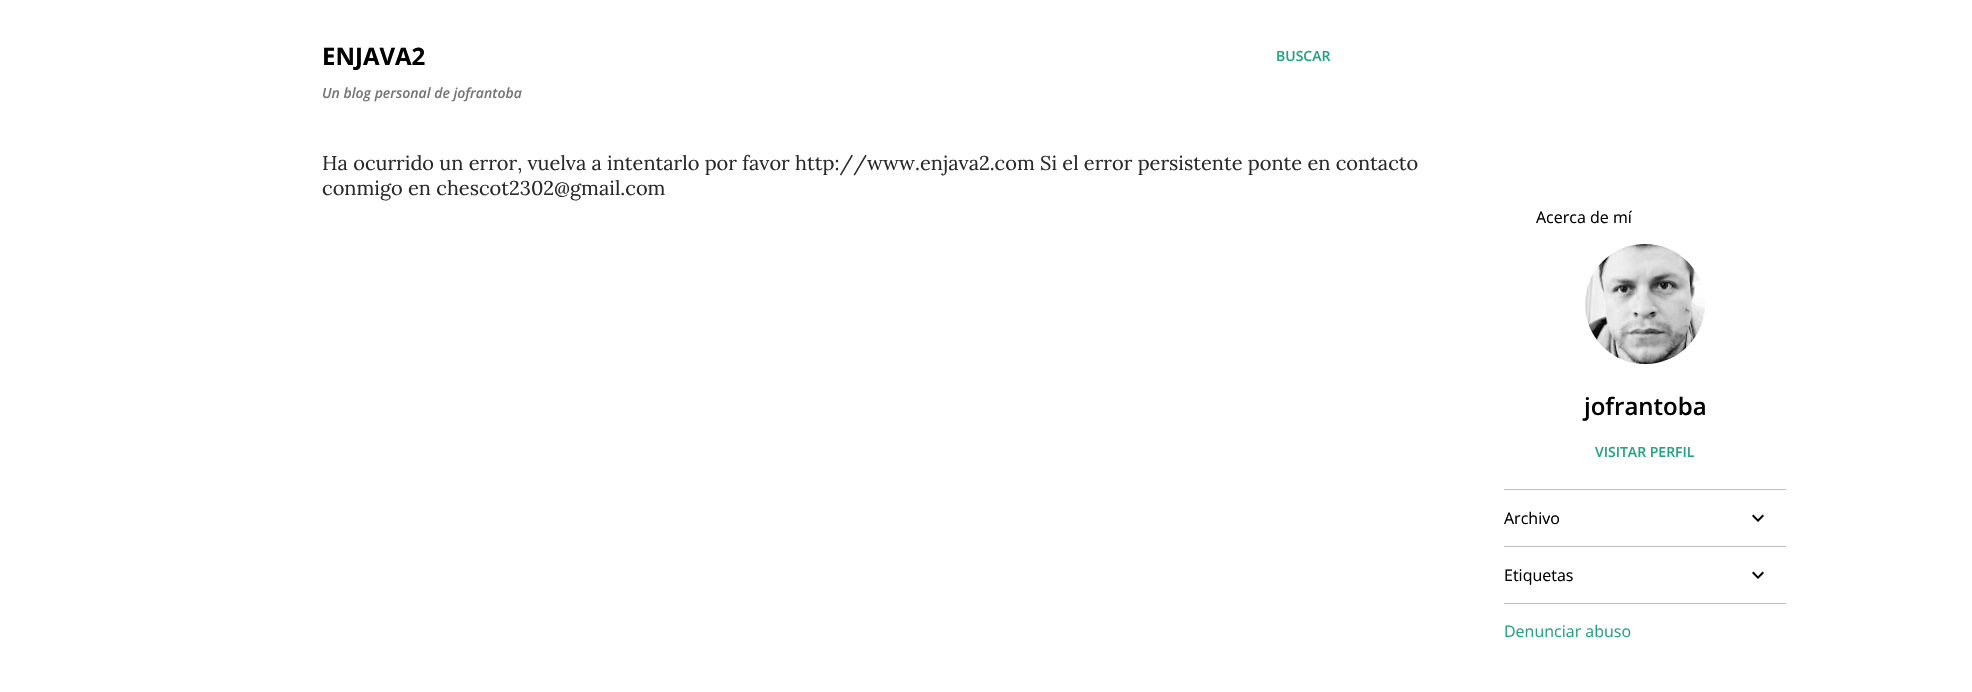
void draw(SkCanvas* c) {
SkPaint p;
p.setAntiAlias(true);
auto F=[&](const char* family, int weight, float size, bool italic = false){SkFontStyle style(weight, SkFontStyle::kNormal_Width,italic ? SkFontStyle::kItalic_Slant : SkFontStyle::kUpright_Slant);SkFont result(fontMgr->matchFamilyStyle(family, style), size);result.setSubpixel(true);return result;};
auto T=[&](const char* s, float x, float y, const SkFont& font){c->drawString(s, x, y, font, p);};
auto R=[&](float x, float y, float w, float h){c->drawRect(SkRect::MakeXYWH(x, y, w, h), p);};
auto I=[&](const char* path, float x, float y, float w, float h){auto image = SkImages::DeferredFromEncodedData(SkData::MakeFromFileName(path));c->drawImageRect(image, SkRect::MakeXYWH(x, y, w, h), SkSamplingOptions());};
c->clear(0xffffffff);
auto f1 = F("Open Sans",700,24);
p.setColor(0xff000000);
T("ENJAVA2",322,65,f1);
auto f2 = F("Open Sans",600,14,true);
p.setColor(0xff757575);
T("Un blog personal de jofrantoba",322,98,f2);
auto f3 = F("Open Sans",600,14);
p.setColor(0xff25a186);
T("BUSCAR",1276,61,f3);
auto f4 = F("Lora",400,20);
p.setColor(0xff292929);
T("Ha ocurrido un error, vuelva a intentarlo por favor http://www.enjava2.com Si el error persistente ponte en contacto",322,170,f4);
T("conmigo en chescot2302@gmail.com",322,195,f4);
auto f5 = F("Open Sans",400,16);
p.setColor(0xff000000);
T("Acerca de mí",1536,223,f5);
I("1.png",1585,244,120,120);
auto f6 = F("Open Sans",600,24);
T("jofrantoba",1584,415,f6);
p.setColor(0xff25a186);
T("VISITAR PERFIL",1595,457,f3);
p.setColor(0xffbdbdbd);
R(1504,489,282,1);
p.setColor(0xff000000);
T("Archivo",1504,524,f5);
I("2.png",1752,514,12,8);
p.setColor(0xffbdbdbd);
R(1504,546,282,1);
p.setColor(0xff000000);
T("Etiquetas",1504,581,f5);
I("2.png",1752,571,12,8);
p.setColor(0xffbdbdbd);
R(1504,603,282,1);
p.setColor(0xff25a186);
T("Denunciar abuso",1504,637,f5);
}
